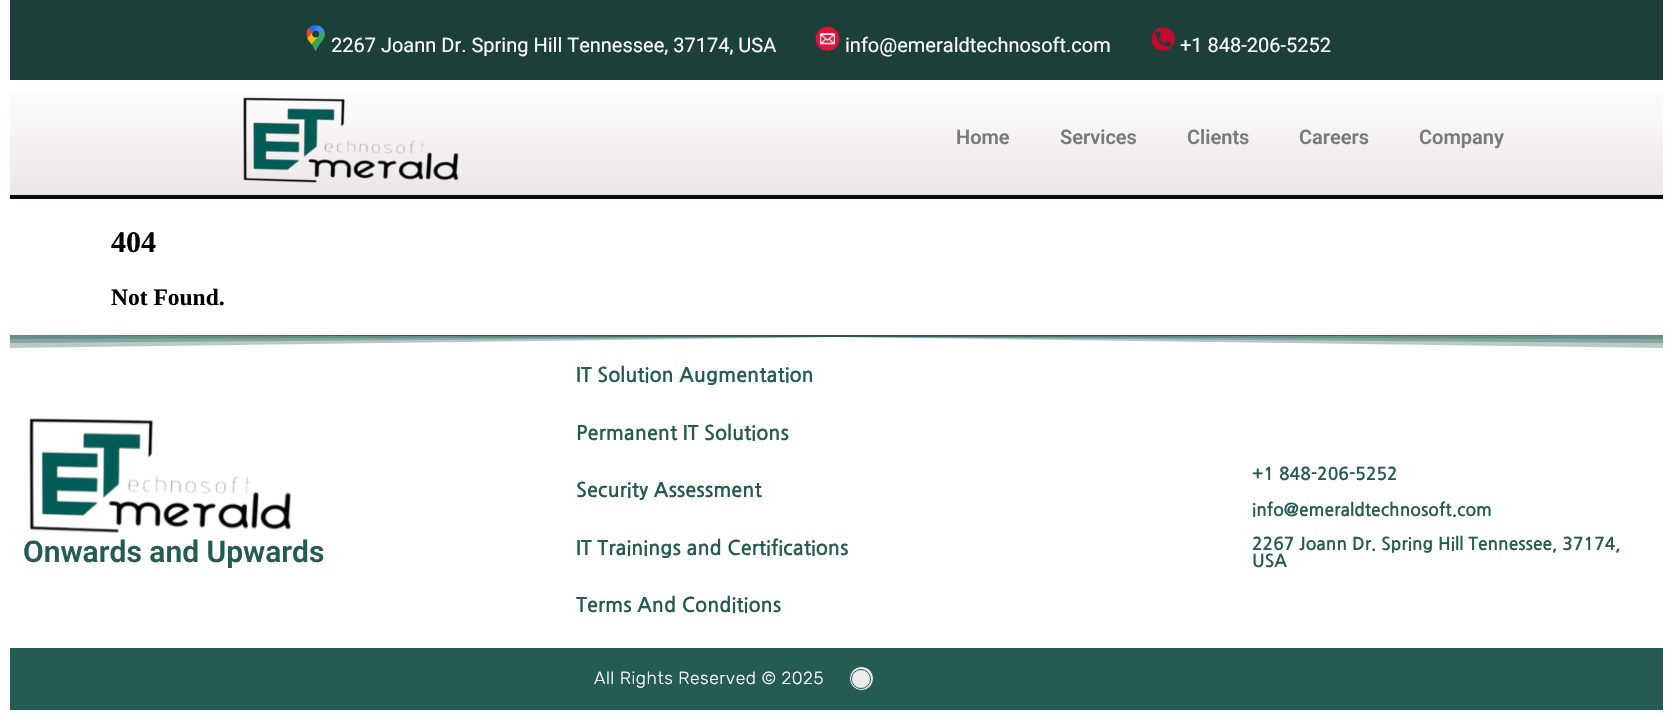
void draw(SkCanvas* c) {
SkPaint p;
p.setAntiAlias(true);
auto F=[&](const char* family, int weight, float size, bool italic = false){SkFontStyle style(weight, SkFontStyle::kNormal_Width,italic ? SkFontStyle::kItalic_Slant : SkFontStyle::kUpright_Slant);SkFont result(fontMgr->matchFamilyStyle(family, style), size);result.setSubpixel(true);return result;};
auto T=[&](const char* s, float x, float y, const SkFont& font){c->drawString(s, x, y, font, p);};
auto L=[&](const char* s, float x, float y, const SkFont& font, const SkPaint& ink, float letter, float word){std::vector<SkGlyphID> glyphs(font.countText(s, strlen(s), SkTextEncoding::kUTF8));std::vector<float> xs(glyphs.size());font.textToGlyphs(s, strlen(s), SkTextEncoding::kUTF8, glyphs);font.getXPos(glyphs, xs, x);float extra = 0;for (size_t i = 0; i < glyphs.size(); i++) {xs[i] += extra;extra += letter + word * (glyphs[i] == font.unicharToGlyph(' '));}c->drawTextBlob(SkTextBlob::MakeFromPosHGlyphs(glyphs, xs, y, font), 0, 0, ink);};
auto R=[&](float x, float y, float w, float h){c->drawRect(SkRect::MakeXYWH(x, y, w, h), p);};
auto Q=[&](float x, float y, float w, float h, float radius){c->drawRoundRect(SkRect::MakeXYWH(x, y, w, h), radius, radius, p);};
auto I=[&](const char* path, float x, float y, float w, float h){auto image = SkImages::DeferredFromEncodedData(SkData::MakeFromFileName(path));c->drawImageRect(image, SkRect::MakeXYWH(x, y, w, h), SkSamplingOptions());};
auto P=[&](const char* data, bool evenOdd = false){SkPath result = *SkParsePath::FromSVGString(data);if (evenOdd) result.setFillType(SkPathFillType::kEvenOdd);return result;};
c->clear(0xffffffff);
p.setColor(0xff0b0b0b);
R(10,195,1653,5);
p.setColor(0xff1c3f39);
R(10,0,1653,80);
I("1.png",306,25,19,26);
auto f1 = F("Roboto",400,20);
p.setColor(0xffffffff);
T("2267 Joann Dr. Spring Hill Tennessee, 37174, USA",331,52,f1);
I("2.png",815,26,25,26);
T("info@emeraldtechnosoft.com",845,52,f1);
I("3.png",1151,27,24,25);
T("+1 848-206-5252",1180,52,f1);
{
const SkColor colors[] = {0xffffffff,0xffece5e7};
const float stops[] = {0,1};
const SkPoint ends[] = {{836,80}, {836,195}};
p.setShader(SkGradientShader::MakeLinear(ends, colors, stops, 2, SkTileMode::kClamp));
p.setAlpha(255);
}
R(10,91,1653,104);
I("4.png",243,97,216,86);
auto f2 = F("Roboto",600,20);
p.setShader(nullptr);
p.setColor(0xff7a7a7a);
T("Home",956,144,f2);
T("Services",1060,144,f2);
T("Clients",1187,144,f2);
T("Careers",1299,144,f2);
T("Company",1419,144,f2);
p.setColor(0xffffffff);
Q(10,199,1653,1,.5);
p.setColor(0x80ffffff);
Q(10,199,1653,1,.5);
auto f3 = F("Liberation Serif",700,30);
p.setColor(0xff000000);
T("404",111,252,f3);
auto f4 = F("Liberation Serif",700,23.5);
T("Not Found.",111,305,f4);
c->save();
c->clipRect(SkRect::MakeXYWH(10,335,1653,14));
p.setColor(0xffb7c9c7);
c->drawPath(P("M9 334v14l828-11l826 11v-14z"),p);
p.setColor(0x54245c54);
c->drawPath(P("M9 334v9l828-6l826 6v-9z"),p);
p.setColor(0xff668d88);
c->drawPath(P("M9 334v5l828-2l826 2v-5z"),p);
p.setColor(0xff245c54);
c->drawPath(P("M9 334v1l828 2l826-2v-1z"),p);
c->restore();
I("5.png",29,418,263,116);
auto f5 = F("Roboto",600,30);
T("Onwards and Upwards",23,562,f5);
auto f6 = F("NanumGothic",700,20);
T("IT Solution Augmentation",576,382,f6);
T("Permanent IT Solutions",576,440,f6);
T("Security Assessment",576,497,f6);
T("IT Trainings and Certifications",576,555,f6);
T("Terms And Conditions",576,612,f6);
auto f7 = F("NanumGothic",700,17.5);
T("+1 848-206-5252",1252,480,f7);
T("info@emeraldtechnosoft.com",1252,516,f7);
T("2267 Joann Dr. Spring Hill Tennessee, 37174,",1252,550,f7);
T("USA",1252,567,f7);
R(10,648,1653,62);
auto f8 = F("Rubik",300,17.5);
p.setColor(0xffffffff);
L("All Rights Reserved © 2025",594,684,f8,p,.5,0);
p.setColor(0xffededed);
c->drawCircle(861.5,678.5,12,p);
p.setStroke(true);
p.setStrokeWidth(1);
p.setColor(0xff245c54);
c->drawCircle(861.5,678.5,12,p);
c->drawCircle(861,679,9.5,p);
}
